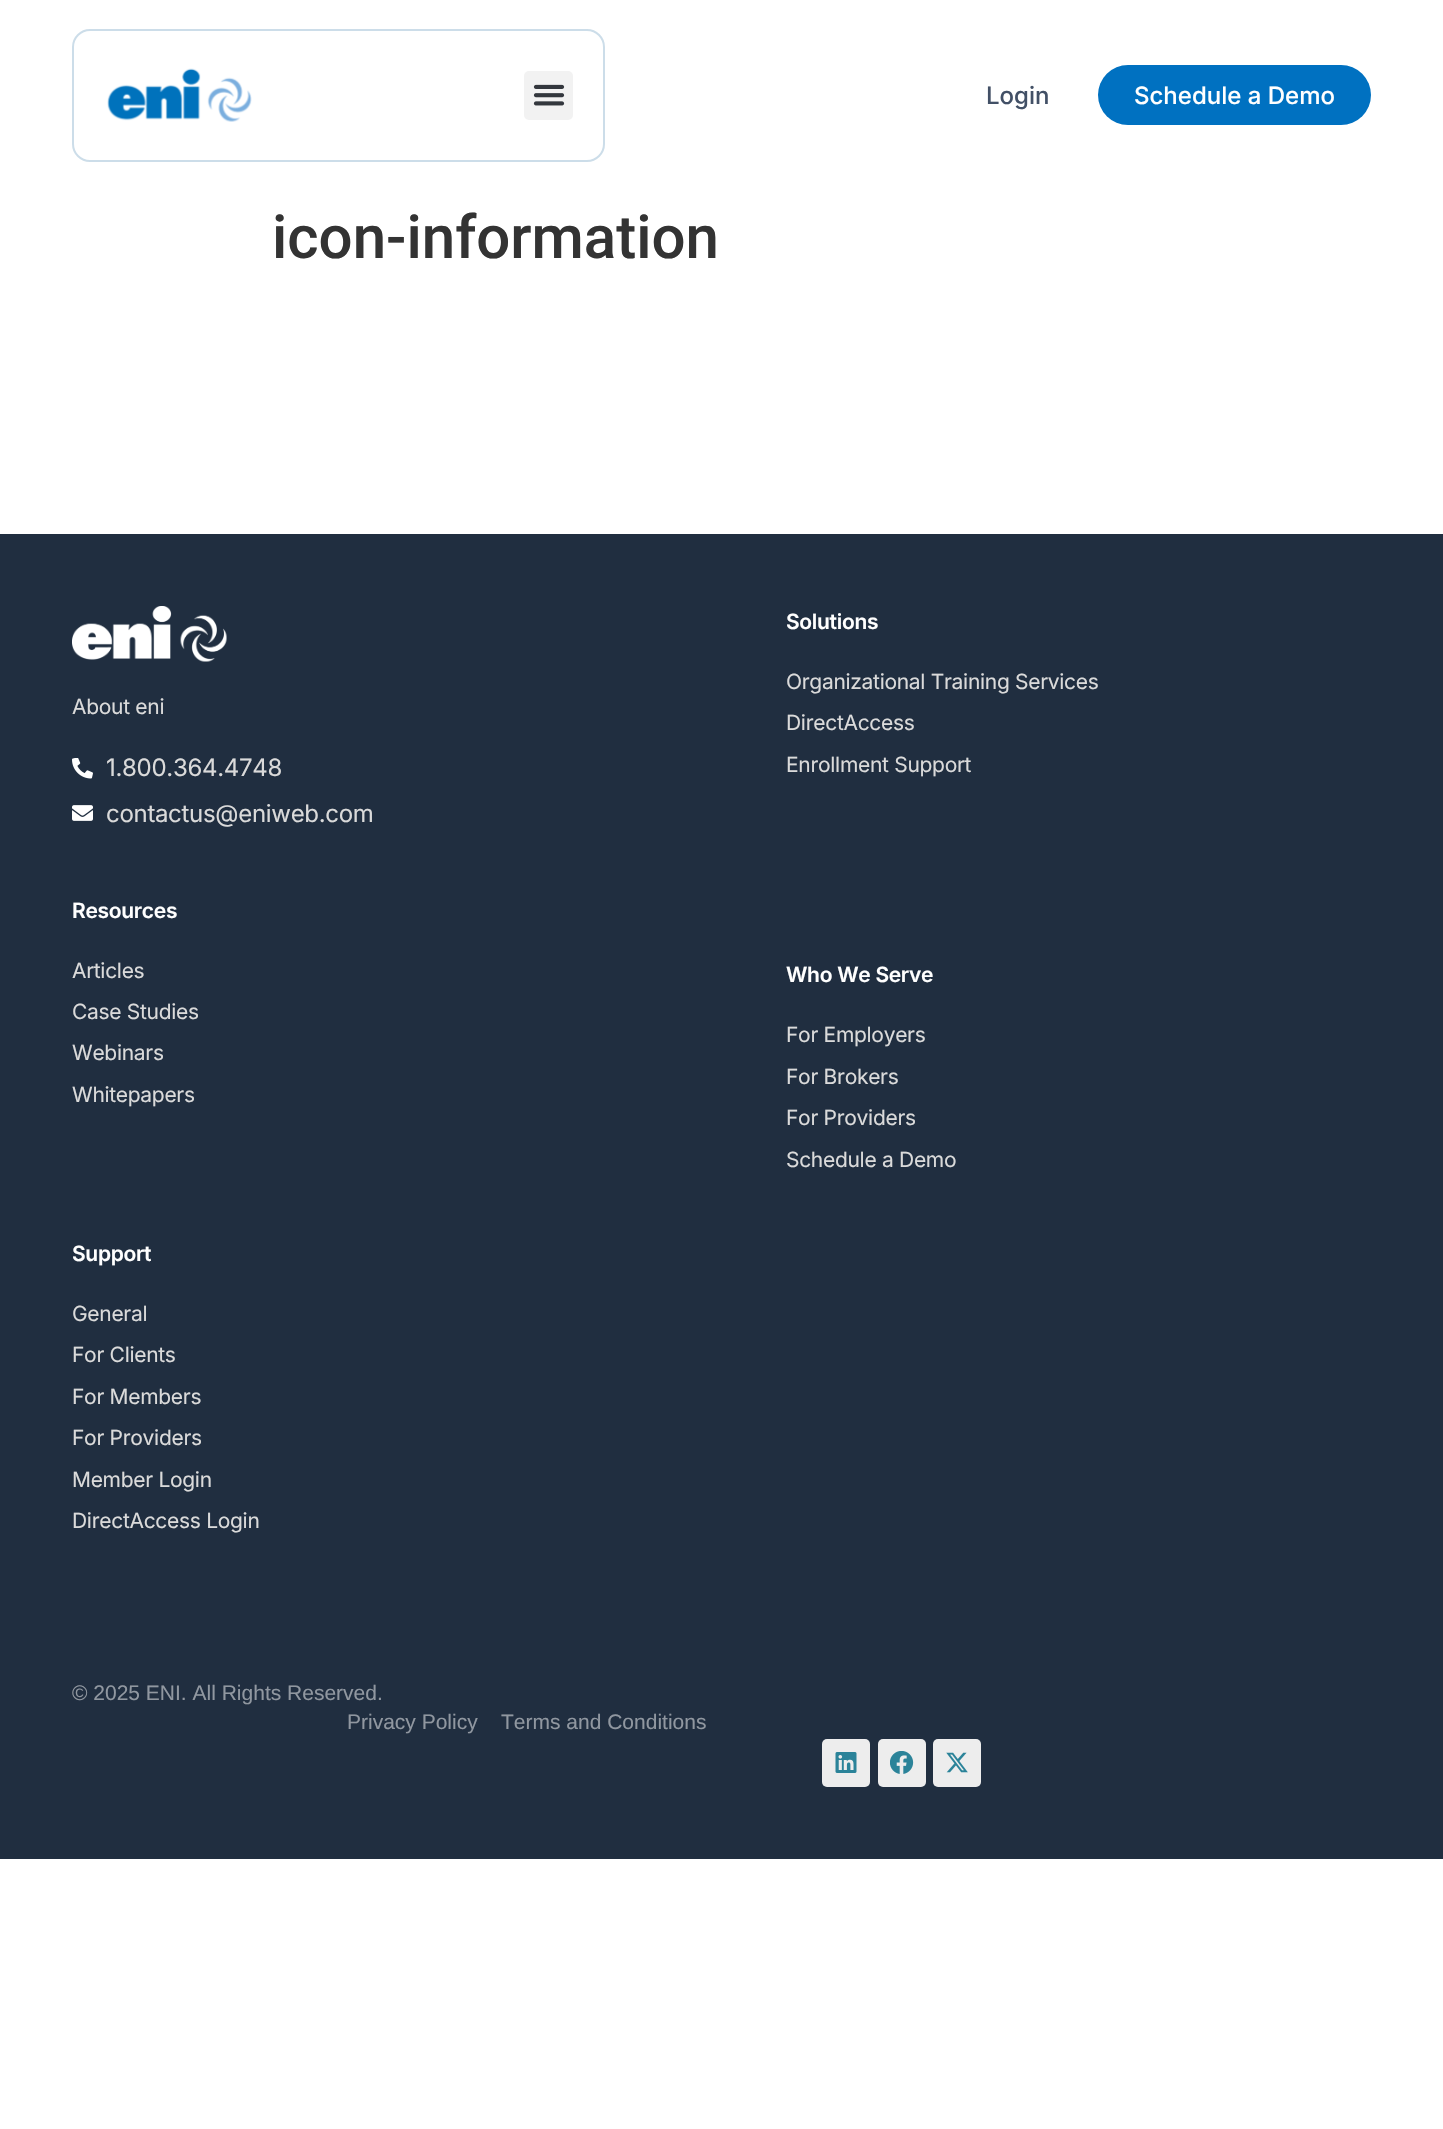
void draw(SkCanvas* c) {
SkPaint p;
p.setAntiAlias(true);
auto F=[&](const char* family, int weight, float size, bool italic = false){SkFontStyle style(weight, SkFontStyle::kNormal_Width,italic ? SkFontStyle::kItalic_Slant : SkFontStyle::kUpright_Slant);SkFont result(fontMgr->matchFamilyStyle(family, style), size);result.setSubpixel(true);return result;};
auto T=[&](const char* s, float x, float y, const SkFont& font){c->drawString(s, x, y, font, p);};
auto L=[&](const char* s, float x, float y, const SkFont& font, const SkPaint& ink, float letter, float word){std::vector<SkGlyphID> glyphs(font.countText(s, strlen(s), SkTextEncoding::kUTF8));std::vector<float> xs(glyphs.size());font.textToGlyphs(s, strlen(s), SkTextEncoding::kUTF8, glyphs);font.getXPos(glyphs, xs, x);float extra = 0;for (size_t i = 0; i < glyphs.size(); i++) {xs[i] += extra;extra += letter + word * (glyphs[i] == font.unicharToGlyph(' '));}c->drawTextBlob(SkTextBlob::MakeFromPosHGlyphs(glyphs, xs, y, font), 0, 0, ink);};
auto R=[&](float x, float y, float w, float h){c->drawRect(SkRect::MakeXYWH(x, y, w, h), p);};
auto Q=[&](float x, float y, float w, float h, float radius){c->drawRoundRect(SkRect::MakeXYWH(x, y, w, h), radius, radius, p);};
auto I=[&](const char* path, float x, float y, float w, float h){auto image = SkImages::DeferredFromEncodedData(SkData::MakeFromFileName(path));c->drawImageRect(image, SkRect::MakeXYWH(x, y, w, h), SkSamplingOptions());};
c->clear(0xffffffff);
p.setStroke(true);
p.setStrokeWidth(2);
p.setColor(0xffccdde9);
c->drawRoundRect(SkRect::MakeXYWH(73,30,531,131),17,17,p);
I("1.png",107,68,145,54);
p.setStroke(false);
p.setColor(0xfff2f2f2);
Q(524,71,49,49,5);
I("2.png",533,84,32,22);
auto f1 = F("Inter",500,24);
p.setColor(0xff425066);
T("Login",986,104,f1);
p.setColor(0xff0071c1);
Q(1098,65,273,60,30);
p.setColor(0xffffffff);
T("Schedule a Demo",1134,104,f1);
auto f2 = F("Roboto",500,60);
p.setColor(0xff333333);
T("icon-information",272,258,f2);
p.setColor(0xff202e40);
R(0,534,1443,1325);
I("3.png",72,606,155,56);
auto f3 = F("Inter",400,21);
p.setColor(0xffdadada);
L("About eni",72,714,f3,p,-.3,0);
I("4.png",72,758,21,21);
auto f4 = F("Inter",400,24);
L("1.800.364.4748",106,776,f4,p,-.3,0);
I("5.png",72,805,21,16);
L("contactus@eniweb.com",106,822,f4,p,-.3,0);
auto f5 = F("Inter",600,21);
p.setColor(0xffffffff);
L("Solutions",786,629,f5,p,-.3,0);
p.setColor(0xffdadada);
L("Organizational Training Services",786,689,f3,p,-.3,0);
L("DirectAccess",786,730,f3,p,-.3,0);
L("Enrollment Support",786,772,f3,p,-.3,0);
p.setColor(0xffffffff);
L("Resources",72,918,f5,p,-.3,0);
p.setColor(0xffdadada);
L("Articles",72,978,f3,p,-.3,0);
L("Case Studies",72,1019,f3,p,-.3,0);
L("Webinars",72,1060,f3,p,-.3,0);
L("Whitepapers",72,1102,f3,p,-.3,0);
p.setColor(0xffffffff);
L("Who We Serve",786,982,f5,p,-.3,0);
p.setColor(0xffdadada);
L("For Employers",786,1042,f3,p,-.3,0);
L("For Brokers",786,1084,f3,p,-.3,0);
L("For Providers",786,1125,f3,p,-.3,0);
L("Schedule a Demo",786,1167,f3,p,-.3,0);
p.setColor(0xffffffff);
L("Support",72,1261,f5,p,-.3,0);
p.setColor(0xffdadada);
L("General",72,1321,f3,p,-.3,0);
L("For Clients",72,1362,f3,p,-.3,0);
L("For Members",72,1404,f3,p,-.3,0);
L("For Providers",72,1445,f3,p,-.3,0);
L("Member Login",72,1487,f3,p,-.3,0);
L("DirectAccess Login",72,1528,f3,p,-.3,0);
auto f6 = F("Liberation Sans",400,21);
p.setColor(0xff9097a0);
T("© 2025 ENI. All Rights Reserved.",72,1700,f6);
T("Privacy Policy",347,1729,f6);
T("Terms and Conditions",501,1729,f6);
p.setColor(0xffededed);
Q(822,1739,48,48,5);
I("6.png",835,1752,22,21);
Q(878,1739,48,48,5);
I("7.png",890,1751,24,23);
Q(933,1739,48,48,5);
I("8.png",946,1752,22,21);
}
